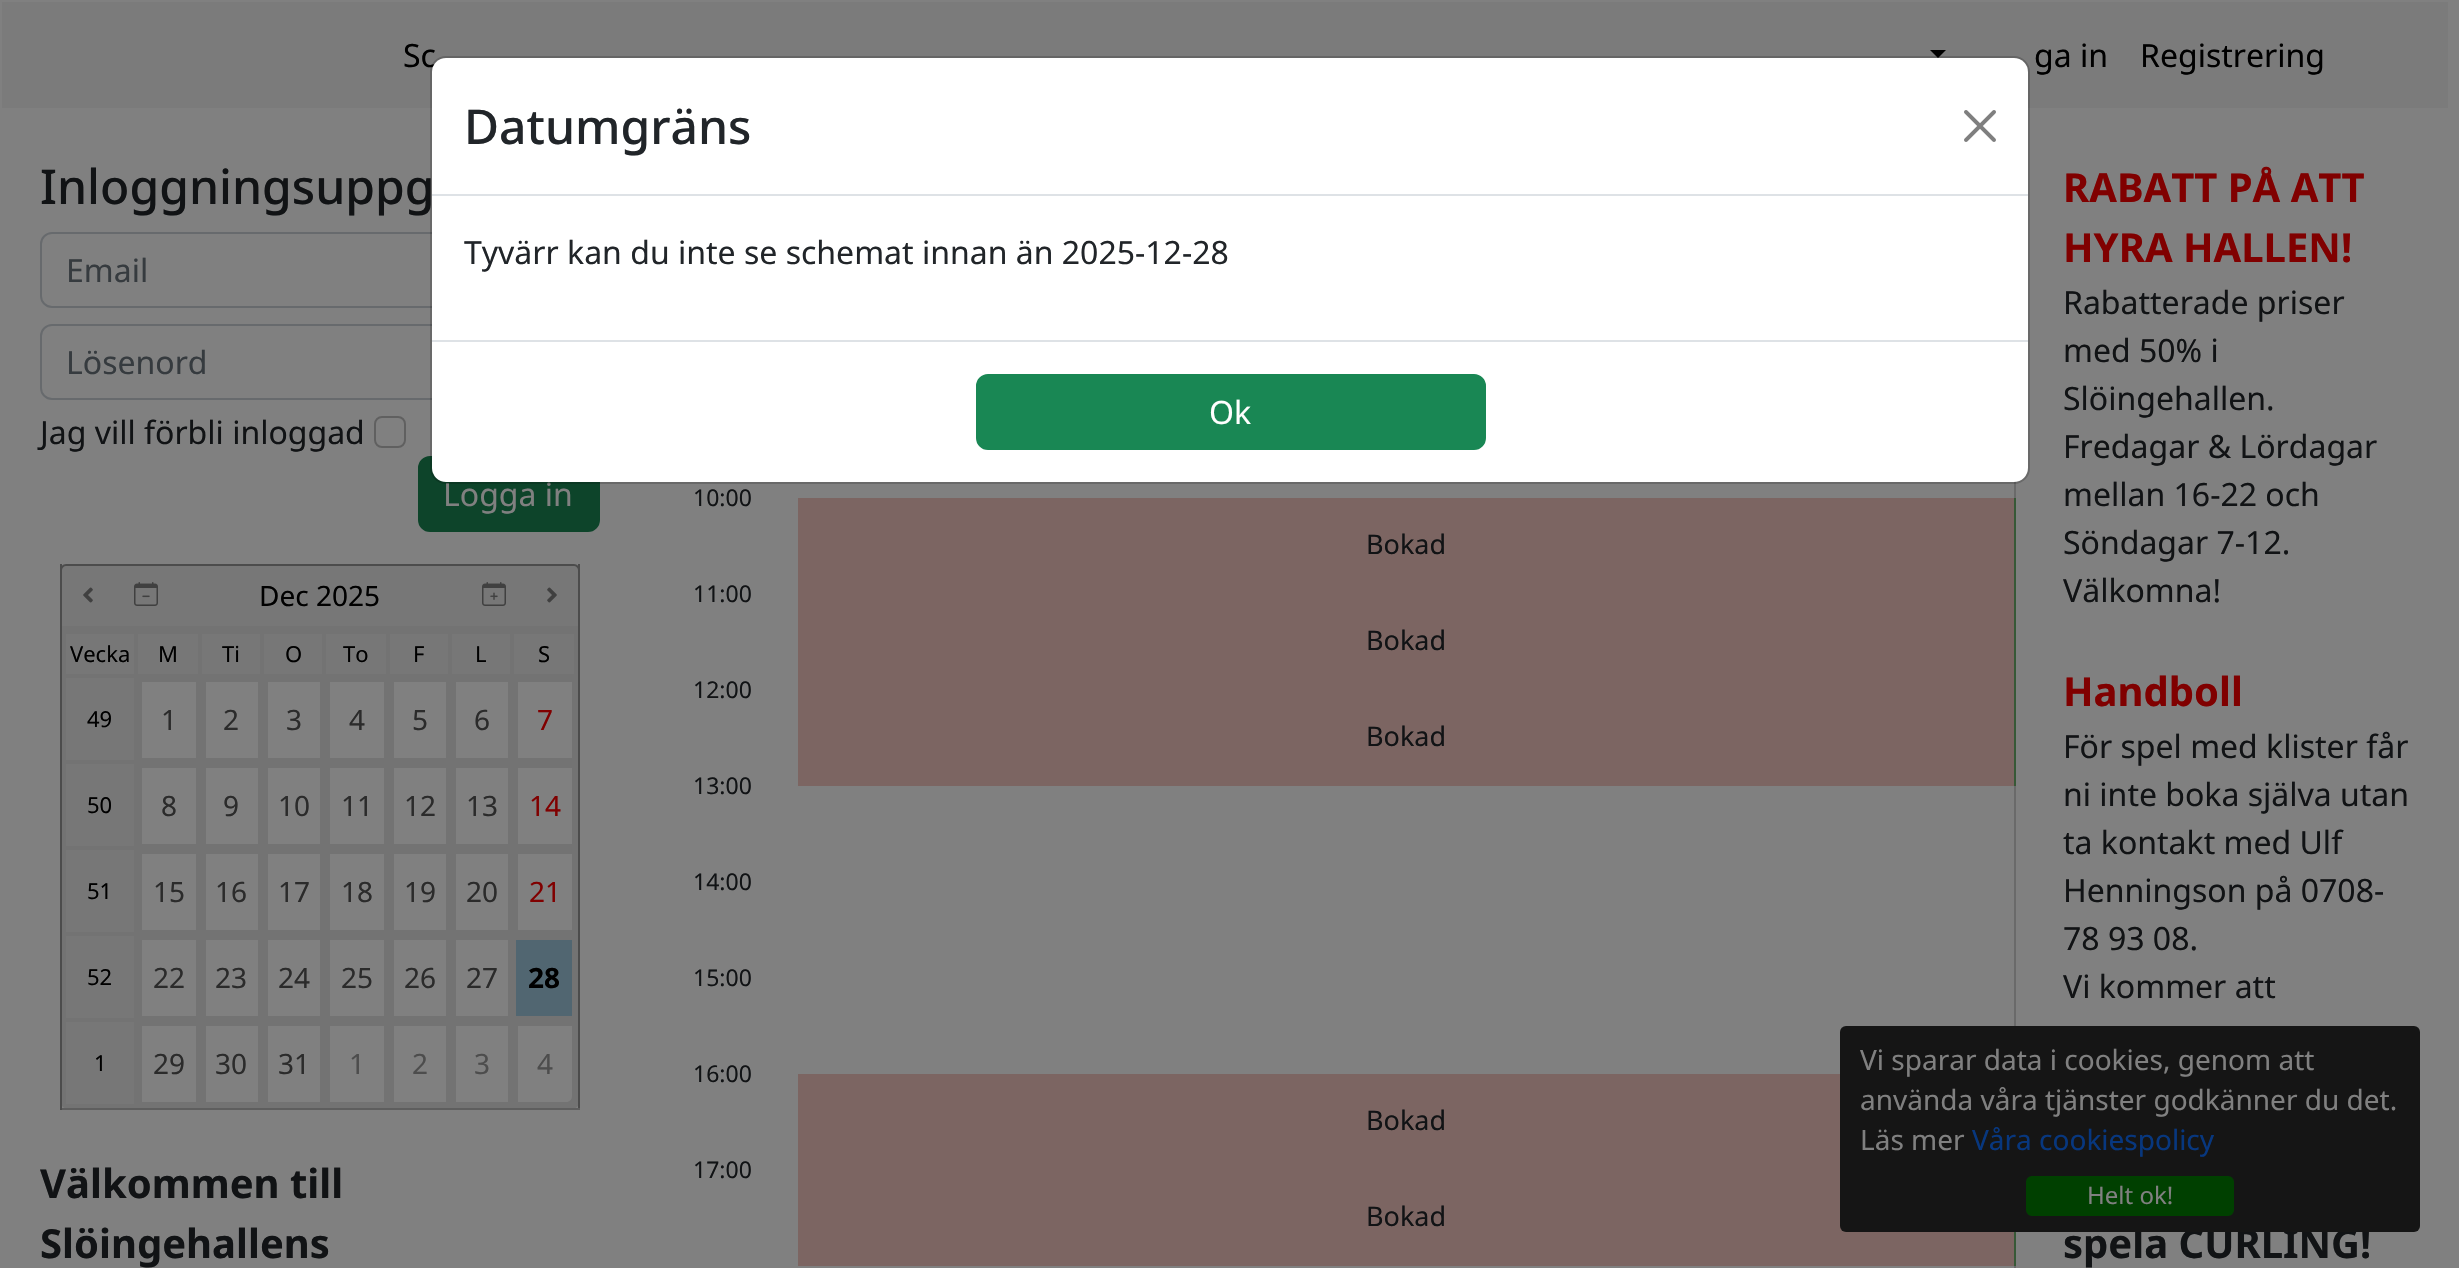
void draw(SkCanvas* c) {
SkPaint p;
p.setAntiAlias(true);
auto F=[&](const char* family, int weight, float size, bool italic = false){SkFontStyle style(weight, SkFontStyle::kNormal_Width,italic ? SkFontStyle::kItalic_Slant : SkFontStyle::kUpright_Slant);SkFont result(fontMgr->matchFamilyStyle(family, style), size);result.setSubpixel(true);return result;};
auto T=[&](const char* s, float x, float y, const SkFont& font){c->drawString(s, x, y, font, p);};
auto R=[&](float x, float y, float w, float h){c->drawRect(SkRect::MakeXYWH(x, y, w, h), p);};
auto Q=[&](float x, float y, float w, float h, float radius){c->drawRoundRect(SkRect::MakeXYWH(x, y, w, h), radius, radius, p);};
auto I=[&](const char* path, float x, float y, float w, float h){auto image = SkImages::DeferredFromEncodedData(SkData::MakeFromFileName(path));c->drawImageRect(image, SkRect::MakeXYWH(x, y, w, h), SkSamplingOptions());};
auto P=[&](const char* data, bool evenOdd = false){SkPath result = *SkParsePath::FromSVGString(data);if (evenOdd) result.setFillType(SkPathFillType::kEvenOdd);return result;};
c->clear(0xff808080);
p.setColor(0xff7b7b7b);
R(2,2,2446,106);
auto f1 = F("Noto Sans",400,32);
p.setColor(0xff000000);
T("Sc",403,67,f1);
c->drawPath(P("M1930 50h16l-8 8z"),p);
T("ga in",2034,67,f1);
T("Registrering",2140,67,f1);
p.setStroke(true);
p.setStrokeWidth(2);
p.setColor(0xff676a6d);
c->drawRoundRect(SkRect::MakeXYWH(41,233,558,74),11,11,p);
c->drawRoundRect(SkRect::MakeXYWH(41,325,558,74),11,11,p);
p.setStroke(false);
p.setColor(0xff0d442a);
c->drawRoundRect(SkRect::MakeXYWH(419,457,180,74),11,11,p);
p.setStroke(true);
c->drawRoundRect(SkRect::MakeXYWH(419,457,180,74),11,11,p);
p.setStroke(false);
p.setColor(0xff6a6a6a);
R(2014,784,2,242);
p.setColor(0xff375937);
R(2014,496,2,290);
p.setColor(0xff6a6a6a);
R(2014,481,2,17);
p.setColor(0xffffffff);
Q(432,58,1596,424,14);
auto f2 = F("Noto Sans",500,48);
p.setColor(0xff111315);
T("Inloggningsuppg",40,204,f2);
p.setColor(0xff808080);
T("Logga in",443,506,f1);
p.setStroke(true);
p.setColor(0x2e000000);
c->drawRoundRect(SkRect::MakeXYWH(431,57,1598,426),15,15,p);
p.setStroke(false);
p.setColor(0xffdee2e6);
R(432,194,1596,2);
p.setColor(0xff212529);
T("Datumgräns",464,144,f2);
I("1.png",1964,110,32,32);
T("Tyvärr kan du inte se schemat innan än 2025-12-28",464,264,f1);
p.setColor(0xffdee2e6);
R(432,340,1596,2);
p.setColor(0xff198754);
c->drawRoundRect(SkRect::MakeXYWH(977,375,508,74),11,11,p);
p.setStroke(true);
c->drawRoundRect(SkRect::MakeXYWH(977,375,508,74),11,11,p);
p.setStroke(false);
p.setColor(0xffffffff);
T("Ok",1209,424,f1);
p.setColor(0xff363b3f);
T("Email",66,282,f1);
T("Lösenord",66,374,f1);
p.setColor(0xff111315);
T("Jag vill förbli inloggad",40,444,f1);
p.setStroke(true);
p.setColor(0xff606060);
c->drawRoundRect(SkRect::MakeXYWH(375,417,30,30),7,7,p);
p.setStroke(false);
p.setColor(0xff737373);
Q(60,564,520,546,10);
p.setColor(0xff4c4c4c);
R(578,564,2,546);
p.setColor(0xff5e5e5e);
R(60,1108,520,2);
p.setColor(0xff4c4c4c);
R(60,564,2,546);
p.setColor(0xff777777);
c->drawPath(P("M66 566h508c2 0 4 2 4 4v56h-516v-56c0-2 2-4 4-4z"),p);
p.setColor(0xff4c4c4c);
c->drawPath(P("M66 564h508c3 0 6 3 6 6v56h-520v-56c0-3 3-6 6-6zm0 2h508c2 0 4 2 4 4v56h-516v-56c0-2 2-4 4-4z",true),p);
I("2.png",83,587,10,16);
I("3.png",134,582,24,24);
auto f3 = F("Noto Sans",400,28);
p.setColor(0xff000000);
T("Dec 2025",259,606,f3);
I("4.png",482,582,24,24);
I("5.png",547,587,10,16);
p.setColor(0xff777777);
R(66,634,68,40);
auto f4 = F("Noto Sans",400,22);
p.setColor(0xff000000);
T("Vecka",70,662,f4);
p.setColor(0xff777777);
R(138,634,60,40);
p.setColor(0xff000000);
T("M",158,662,f4);
p.setColor(0xff777777);
R(202,634,58,40);
p.setColor(0xff000000);
T("Ti",222,662,f4);
p.setColor(0xff777777);
R(264,634,58,40);
p.setColor(0xff000000);
T("O",285,662,f4);
p.setColor(0xff777777);
R(326,634,60,40);
p.setColor(0xff000000);
T("To",343,662,f4);
p.setColor(0xff777777);
R(390,634,58,40);
p.setColor(0xff000000);
T("F",413,662,f4);
p.setColor(0xff777777);
R(452,634,58,40);
p.setColor(0xff000000);
T("L",475,662,f4);
p.setColor(0xff777777);
R(514,634,60,40);
p.setColor(0xff000000);
T("S",538,662,f4);
p.setColor(0xff777777);
R(66,678,68,82);
p.setColor(0xff000000);
T("49",87,727,f4);
p.setColor(0xff808080);
R(142,682,54,76);
p.setColor(0xff2b2b2b);
T("1",161,730,f3);
p.setColor(0xff808080);
R(206,682,52,76);
p.setColor(0xff2b2b2b);
T("2",223,730,f3);
p.setColor(0xff808080);
R(268,682,52,76);
p.setColor(0xff2b2b2b);
T("3",286,730,f3);
p.setColor(0xff808080);
R(330,682,54,76);
p.setColor(0xff2b2b2b);
T("4",349,730,f3);
p.setColor(0xff808080);
R(394,682,52,76);
p.setColor(0xff2b2b2b);
T("5",412,730,f3);
p.setColor(0xff808080);
R(456,682,52,76);
p.setColor(0xff2b2b2b);
T("6",474,730,f3);
p.setColor(0xff808080);
R(518,682,54,76);
p.setColor(0xff800000);
T("7",537,730,f3);
p.setColor(0xff777777);
R(66,764,68,82);
p.setColor(0xff000000);
T("50",87,813,f4);
p.setColor(0xff808080);
R(142,768,54,76);
p.setColor(0xff2b2b2b);
T("8",161,816,f3);
p.setColor(0xff808080);
R(206,768,52,76);
p.setColor(0xff2b2b2b);
T("9",223,816,f3);
p.setColor(0xff808080);
R(268,768,52,76);
p.setColor(0xff2b2b2b);
T("10",278,816,f3);
p.setColor(0xff808080);
R(330,768,54,76);
p.setColor(0xff2b2b2b);
T("11",341,816,f3);
p.setColor(0xff808080);
R(394,768,52,76);
p.setColor(0xff2b2b2b);
T("12",404,816,f3);
p.setColor(0xff808080);
R(456,768,52,76);
p.setColor(0xff2b2b2b);
T("13",466,816,f3);
p.setColor(0xff808080);
R(518,768,54,76);
p.setColor(0xff800000);
T("14",529,816,f3);
p.setColor(0xff777777);
R(66,850,68,82);
p.setColor(0xff000000);
T("51",87,899,f4);
p.setColor(0xff808080);
R(142,854,54,76);
p.setColor(0xff2b2b2b);
T("15",153,902,f3);
p.setColor(0xff808080);
R(206,854,52,76);
p.setColor(0xff2b2b2b);
T("16",215,902,f3);
p.setColor(0xff808080);
R(268,854,52,76);
p.setColor(0xff2b2b2b);
T("17",278,902,f3);
p.setColor(0xff808080);
R(330,854,54,76);
p.setColor(0xff2b2b2b);
T("18",341,902,f3);
p.setColor(0xff808080);
R(394,854,52,76);
p.setColor(0xff2b2b2b);
T("19",404,902,f3);
p.setColor(0xff808080);
R(456,854,52,76);
p.setColor(0xff2b2b2b);
T("20",466,902,f3);
p.setColor(0xff808080);
R(518,854,54,76);
p.setColor(0xff800000);
T("21",529,902,f3);
p.setColor(0xff777777);
R(66,936,68,82);
p.setColor(0xff000000);
T("52",87,985,f4);
p.setColor(0xff808080);
R(142,940,54,76);
p.setColor(0xff2b2b2b);
T("22",153,988,f3);
p.setColor(0xff808080);
R(206,940,52,76);
p.setColor(0xff2b2b2b);
T("23",215,988,f3);
p.setColor(0xff808080);
R(268,940,52,76);
p.setColor(0xff2b2b2b);
T("24",278,988,f3);
p.setColor(0xff808080);
R(330,940,54,76);
p.setColor(0xff2b2b2b);
T("25",341,988,f3);
p.setColor(0xff808080);
R(394,940,52,76);
p.setColor(0xff2b2b2b);
T("26",404,988,f3);
p.setColor(0xff808080);
R(456,940,52,76);
p.setColor(0xff2b2b2b);
T("27",466,988,f3);
p.setColor(0xff516671);
R(516,940,56,76);
auto f5 = F("Noto Sans",700,28);
p.setColor(0xff000000);
T("28",528,988,f5);
p.setColor(0xff777777);
R(66,1022,68,82);
p.setColor(0xff000000);
T("1",94,1071,f4);
p.setColor(0xff808080);
R(142,1026,54,76);
p.setColor(0xff2b2b2b);
T("29",153,1074,f3);
p.setColor(0xff808080);
R(206,1026,52,76);
p.setColor(0xff2b2b2b);
T("30",215,1074,f3);
p.setColor(0xff808080);
R(268,1026,52,76);
p.setColor(0xff2b2b2b);
T("31",278,1074,f3);
p.setColor(0xff808080);
R(330,1026,54,76);
p.setColor(0xff4d4d4d);
T("1",349,1074,f3);
p.setColor(0xff808080);
R(394,1026,52,76);
p.setColor(0xff4d4d4d);
T("2",412,1074,f3);
p.setColor(0xff808080);
R(456,1026,52,76);
p.setColor(0xff4d4d4d);
T("3",474,1074,f3);
p.setColor(0xff808080);
c->drawPath(P("M518 1026h54v70c0 3.5-2.5 6-6 6h-48z"),p);
p.setColor(0xff4d4d4d);
T("4",537,1074,f3);
auto f6 = F("Noto Sans",700,40);
p.setColor(0xff111315);
T("Välkommen till",40,1198,f6);
T("Slöingehallens",40,1258,f6);
auto f7 = F("Noto Sans",400,23);
T("10:00",693,506,f7);
T("11:00",693,602,f7);
T("12:00",693,698,f7);
T("13:00",693,794,f7);
T("14:00",693,890,f7);
T("15:00",693,986,f7);
T("16:00",693,1082,f7);
T("17:00",693,1178,f7);
p.setColor(0xff7c6562);
R(798,498,1216,288);
auto f8 = F("Noto Sans",400,27);
p.setColor(0xff111315);
T("Bokad",1366,554,f8);
T("Bokad",1366,650,f8);
T("Bokad",1366,746,f8);
p.setColor(0xff7c6562);
R(798,1074,1042,96);
p.setColor(0xff111315);
T("Bokad",1366,1130,f8);
p.setColor(0xff6a6a6a);
R(2014,1264,2,4);
p.setColor(0xff375937);
R(2014,1232,2,34);
p.setColor(0xff7c6562);
R(798,1170,1216,96);
p.setColor(0xff111315);
T("Bokad",1366,1226,f8);
p.setColor(0xff800000);
T("RABATT PÅ ATT",2063,202,f6);
T("HYRA HALLEN!",2063,262,f6);
p.setColor(0xff111315);
T("Rabatterade priser",2063,314,f1);
T("med 50% i",2063,362,f1);
T("Slöingehallen.",2063,410,f1);
T("Fredagar & Lördagar",2063,458,f1);
T("mellan 16-22 och",2063,506,f1);
T("Söndagar 7-12.",2063,554,f1);
T("Välkomna!",2063,602,f1);
p.setColor(0xff800000);
T("Handboll",2063,706,f6);
p.setColor(0xff111315);
T("För spel med klister får",2063,758,f1);
T("ni inte boka själva utan",2063,806,f1);
T("ta kontakt med Ulf",2063,854,f1);
T("Henningson på 0708-",2063,902,f1);
T("78 93 08.",2063,950,f1);
T("Vi kommer att",2063,998,f1);
T("spela CURLING!",2063,1258,f6);
p.setColor(0xff151515);
Q(1840,1026,580,206,6);
p.setColor(0xff808080);
T("Vi sparar data i cookies, genom att",1860,1070,f3);
T("använda våra tjänster godkänner du det.",1860,1110,f3);
T("Läs mer",1860,1150,f3);
p.setColor(0xff07377f);
T("Våra cookiespolicy",1972,1150,f3);
p.setColor(0xff004000);
c->drawRoundRect(SkRect::MakeXYWH(2027,1177,206,38),5,5,p);
p.setStroke(true);
c->drawRoundRect(SkRect::MakeXYWH(2027,1177,206,38),5,5,p);
auto f9 = F("Noto Sans",400,24);
p.setStroke(false);
p.setColor(0xff808080);
T("Helt ok!",2087,1204,f9);
}
